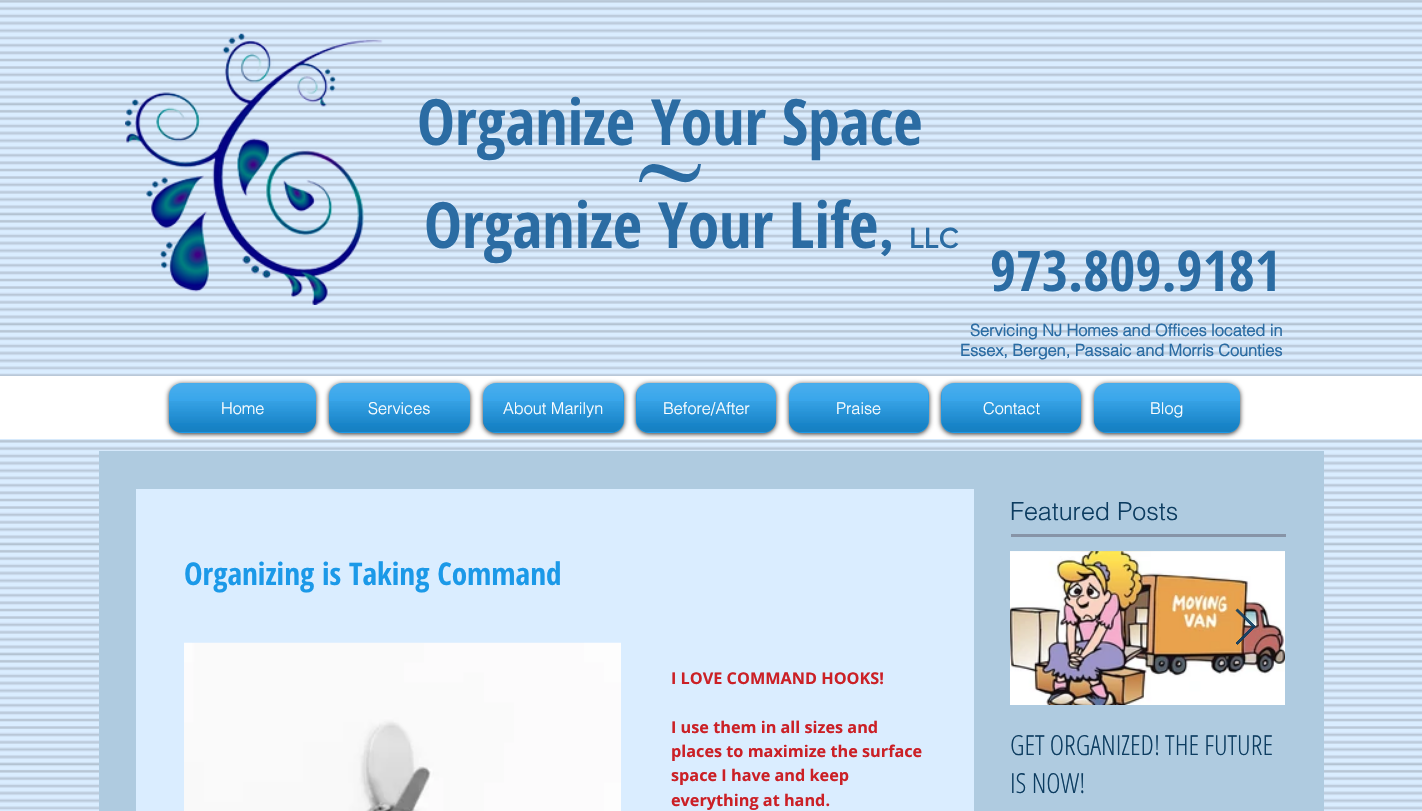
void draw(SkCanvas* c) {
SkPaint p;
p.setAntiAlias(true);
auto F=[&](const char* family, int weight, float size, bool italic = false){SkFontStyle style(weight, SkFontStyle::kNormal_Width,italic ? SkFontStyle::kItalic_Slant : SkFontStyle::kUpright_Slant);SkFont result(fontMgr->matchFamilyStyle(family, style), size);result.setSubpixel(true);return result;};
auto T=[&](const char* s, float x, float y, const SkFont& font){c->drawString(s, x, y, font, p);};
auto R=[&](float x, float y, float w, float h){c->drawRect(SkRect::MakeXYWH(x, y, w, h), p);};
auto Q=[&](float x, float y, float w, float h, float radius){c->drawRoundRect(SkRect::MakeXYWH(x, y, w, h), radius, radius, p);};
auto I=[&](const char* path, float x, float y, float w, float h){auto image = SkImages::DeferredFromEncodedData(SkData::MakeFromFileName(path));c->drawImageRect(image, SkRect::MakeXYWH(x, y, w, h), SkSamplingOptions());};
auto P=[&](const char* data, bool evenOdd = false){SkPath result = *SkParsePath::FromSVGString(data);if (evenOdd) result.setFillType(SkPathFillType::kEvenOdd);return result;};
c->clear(0xffdaedff);
I("1.png",0,0,1422,810);
I("2.png",125,33,258,272);
auto f1 = F("Open Sans Condensed",700,63.75);
p.setColor(0xff2b6ca3);
T("Organize Your Space",417,145,f1);
c->drawPath(P("M698 164c0 3-2 6-5 8c-11 9-32-15-46-6c-6 3-7 10-8 16h3c0-3 2-6 5-8c11-8 32 15 46 6c6-3 7-10 8-16z"),p);
T("Organize Your Life",424,248,f1);
auto f2 = F("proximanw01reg",700,63.75);
T(",",878,248,f2);
auto f3 = F("proximanw01reg",700,29);
T("LLC",909,248,f3);
auto f4 = F("Open Sans Condensed",700,56.25);
T("973.809.9181",990,291,f4);
auto f5 = F("helvetica",700,16.25);
T("Servicing NJ Homes and Offices located in",970,336,f5);
T("Essex, Bergen, Passaic and Morris Counties",960,356,f5);
p.setColor(0xffffffff);
R(0,376,1422,63);
p.setColor(0xd1000000);
p.setMaskFilter(SkMaskFilter::MakeBlur(kNormal_SkBlurStyle, 2.5));
c->drawRoundRect(SkRect::MakeXYWH(169,384,147,50),13,13,p);
p.setMaskFilter(nullptr);
p.setColor(0xff1b99e8);
Q(169,383,147,50,13);
I("3.png",169,383,147,40);
I("4.png",169,401,147,31);
auto f6 = F("helvetica",300,16.25);
p.setColor(0xffffffff);
T("Home",221,414,f6);
p.setColor(0xd1000000);
p.setMaskFilter(SkMaskFilter::MakeBlur(kNormal_SkBlurStyle, 2.5));
c->drawRoundRect(SkRect::MakeXYWH(329,384,141,50),13,13,p);
p.setMaskFilter(nullptr);
p.setColor(0xff1b99e8);
Q(329,383,141,50,13);
I("5.png",329,383,141,40);
I("6.png",329,401,141,31);
p.setColor(0xffffffff);
T("Services",368,414,f6);
p.setColor(0xd1000000);
p.setMaskFilter(SkMaskFilter::MakeBlur(kNormal_SkBlurStyle, 2.5));
c->drawRoundRect(SkRect::MakeXYWH(483,384,141,50),13,13,p);
p.setMaskFilter(nullptr);
p.setColor(0xff1b99e8);
Q(483,383,141,50,13);
I("7.png",483,383,141,40);
I("8.png",483,401,141,31);
p.setColor(0xffffffff);
T("About Marilyn",503,414,f6);
p.setColor(0xd1000000);
p.setMaskFilter(SkMaskFilter::MakeBlur(kNormal_SkBlurStyle, 2.5));
c->drawRoundRect(SkRect::MakeXYWH(636,384,140,50),13,13,p);
p.setMaskFilter(nullptr);
p.setColor(0xff1b99e8);
Q(636,383,140,50,13);
I("9.png",636,383,140,40);
I("10.png",636,401,140,31);
p.setColor(0xffffffff);
T("Before/After",663,414,f6);
p.setColor(0xd1000000);
p.setMaskFilter(SkMaskFilter::MakeBlur(kNormal_SkBlurStyle, 2.5));
c->drawRoundRect(SkRect::MakeXYWH(789,384,140,50),13,13,p);
p.setMaskFilter(nullptr);
p.setColor(0xff1b99e8);
Q(789,383,140,50,13);
I("11.png",789,383,140,40);
I("12.png",789,401,140,31);
p.setColor(0xffffffff);
T("Praise",836,414,f6);
p.setColor(0xd1000000);
p.setMaskFilter(SkMaskFilter::MakeBlur(kNormal_SkBlurStyle, 2.5));
c->drawRoundRect(SkRect::MakeXYWH(941,384,140,50),13,13,p);
p.setMaskFilter(nullptr);
p.setColor(0xff1b99e8);
Q(941,383,140,50,13);
I("13.png",941,383,140,40);
I("10.png",941,401,140,31);
p.setColor(0xffffffff);
T("Contact",983,414,f6);
p.setColor(0xd1000000);
p.setMaskFilter(SkMaskFilter::MakeBlur(kNormal_SkBlurStyle, 2.5));
c->drawRoundRect(SkRect::MakeXYWH(1094,384,146,50),13,13,p);
p.setMaskFilter(nullptr);
p.setColor(0xff1b99e8);
Q(1094,383,146,50,13);
I("14.png",1094,383,146,40);
I("15.png",1094,401,146,31);
p.setColor(0xffffffff);
T("Blog",1150,414,f6);
p.setColor(0xffafcbe0);
R(99,451,1225,360);
auto f7 = F("helvetica",300,25);
p.setColor(0xff0c3c60);
T("Featured Posts",1010,520,f7);
p.setColor(0xff8794a7);
R(1011,534,275,3);
p.setColor(0xffdaedff);
R(136,489,838,322);
auto f8 = F("Open Sans Condensed",700,31.25);
p.setColor(0xff1b99e8);
T("Organizing is Taking Command",184,585,f8);
I("16.png",184,642,437,169);
auto f9 = F("Open Sans",700,16.25);
p.setColor(0xffcb2026);
T("I LOVE COMMAND HOOKS!",671,684,f9);
T("I use them in all sizes and",671,733,f9);
T("places to maximize the surface",671,757,f9);
T("space I have and keep",671,781,f9);
T("everything at hand.",671,806,f9);
I("17.png",1010,551,275,1);
I("18.png",1010,551,275,154);
p.setColor(0xe60c3c60);
c->drawPath(P("M1236 610.5l1.5-1.5l18 17.5l-18 18l-1.5-1.5l16.5-16.5z"),p);
p.setStroke(true);
p.setStrokeWidth(1);
c->drawPath(P("M1236 610.5l1.5-1.5l18 17.5l-18 18l-1.5-1.5l16.5-16.5z"),p);
auto f10 = F("Open Sans Condensed",300,27.5);
p.setStroke(false);
p.setColor(0xff0c3c60);
T("GET ORGANIZED! THE FUTURE",1010,755,f10);
T("IS NOW!",1010,793,f10);
}
